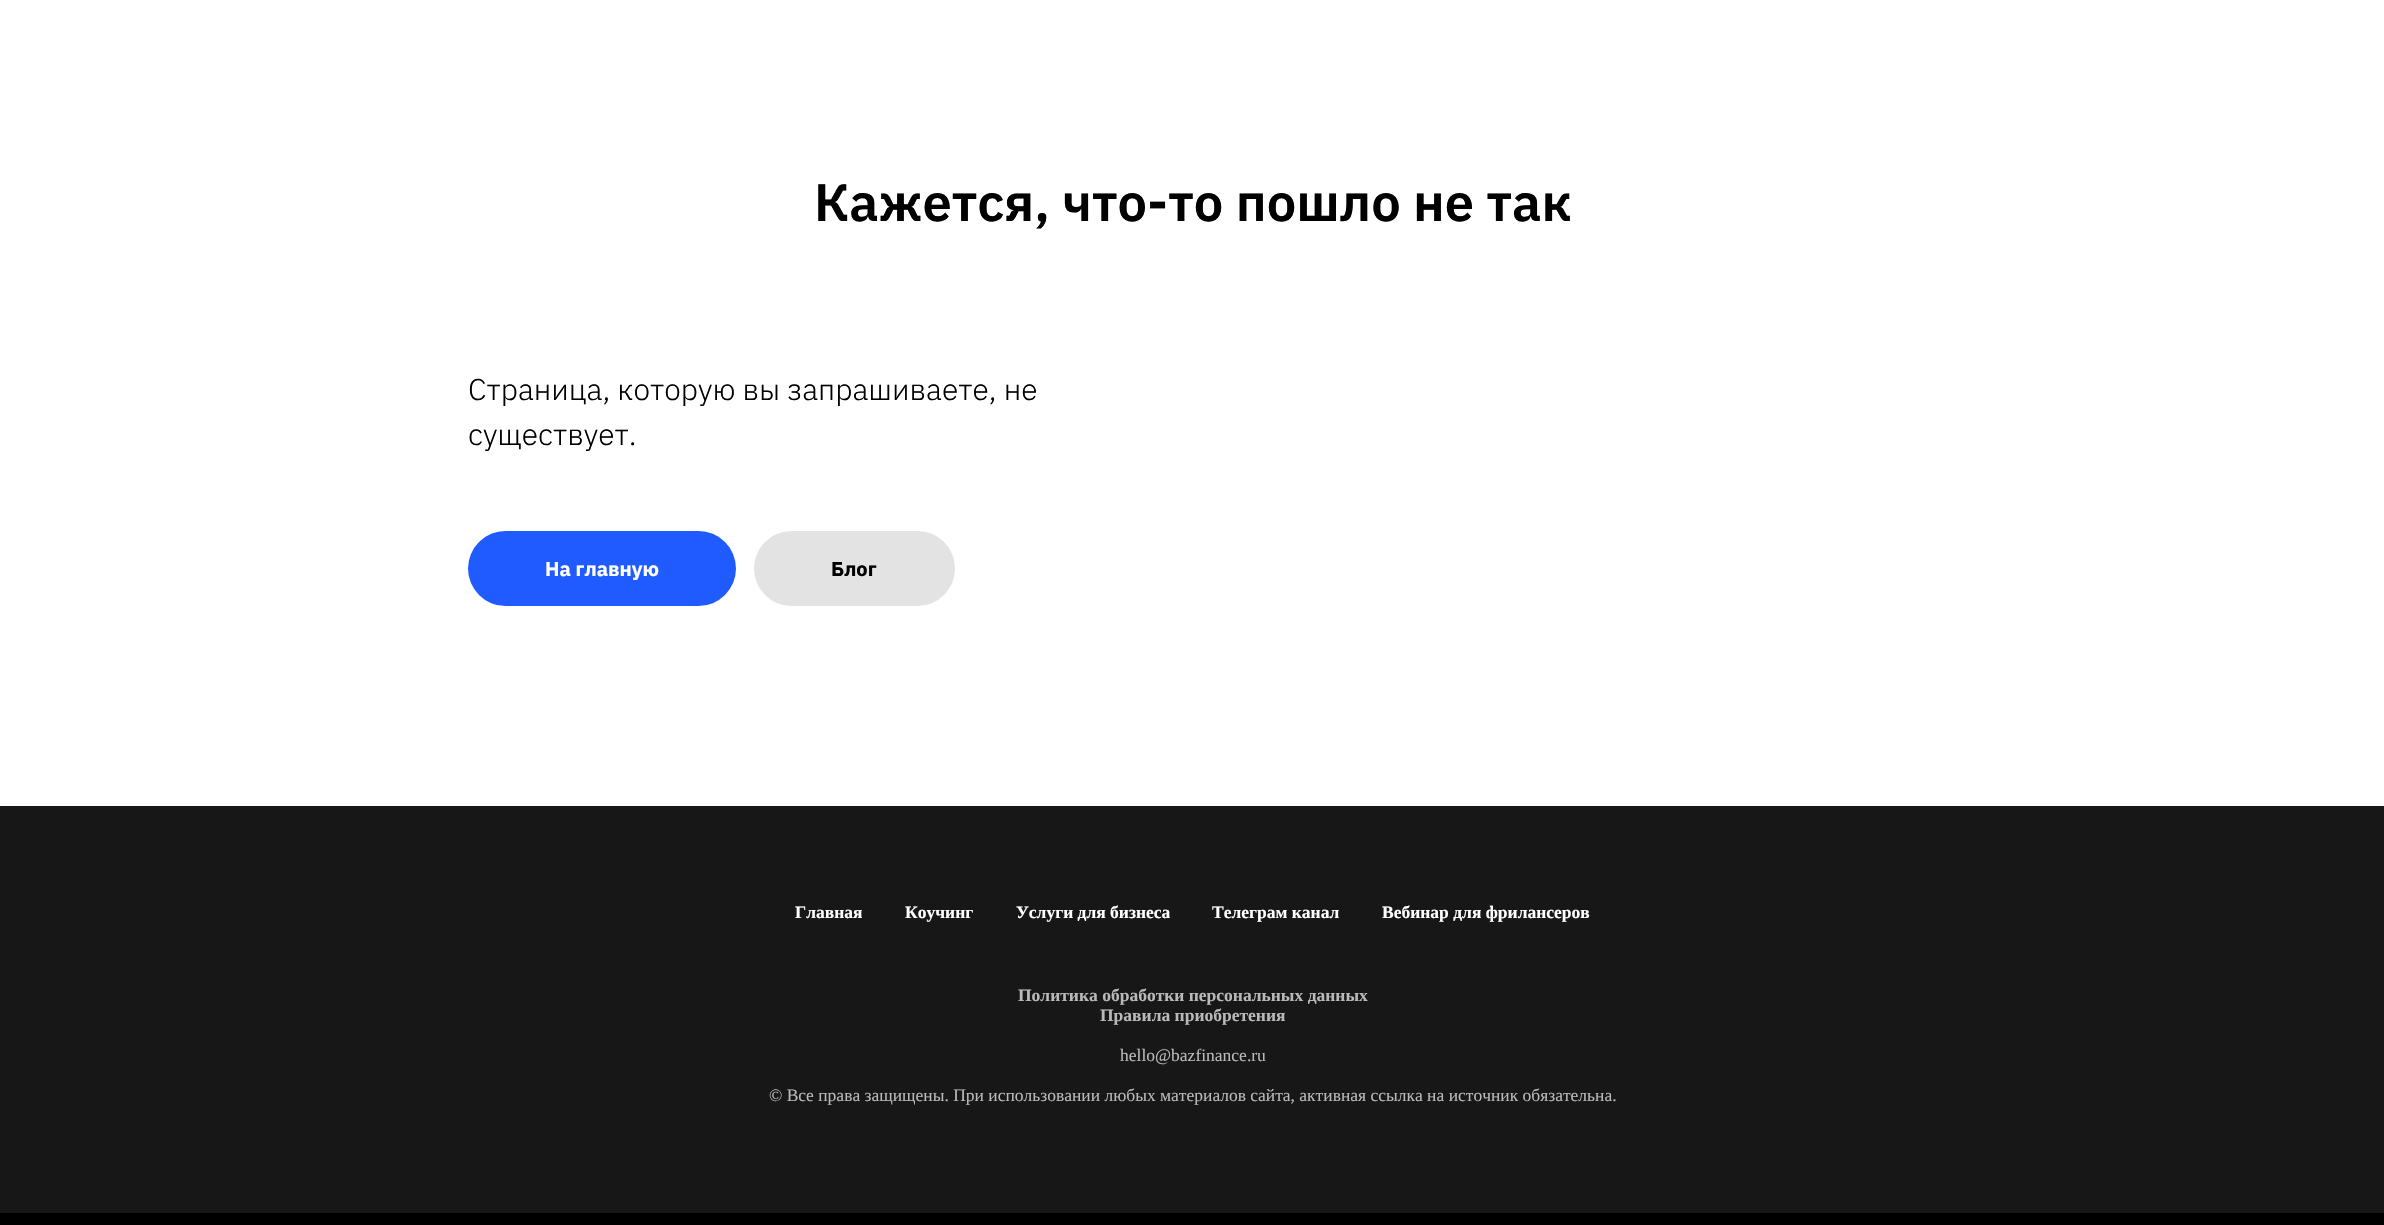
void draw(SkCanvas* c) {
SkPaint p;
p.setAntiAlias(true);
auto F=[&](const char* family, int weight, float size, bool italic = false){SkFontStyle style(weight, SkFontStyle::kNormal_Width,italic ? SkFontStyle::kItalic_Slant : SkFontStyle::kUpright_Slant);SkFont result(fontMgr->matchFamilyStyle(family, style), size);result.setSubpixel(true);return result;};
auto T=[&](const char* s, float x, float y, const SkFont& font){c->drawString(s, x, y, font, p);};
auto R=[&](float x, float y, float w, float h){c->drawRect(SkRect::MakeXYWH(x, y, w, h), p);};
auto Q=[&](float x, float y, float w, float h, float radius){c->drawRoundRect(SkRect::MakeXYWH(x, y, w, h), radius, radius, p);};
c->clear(0xffffffff);
auto f1 = F("IBM Plex Sans",600,52.5);
p.setColor(0xff000000);
T("Кажется, что-то пошло не так",814,221,f1);
auto f2 = F("IBM Plex Sans",300,30);
T("Страница, которую вы запрашиваете, не",468,400,f2);
T("существует.",468,445,f2);
p.setColor(0xff1f5bff);
Q(468,531,268,75,37.5);
auto f3 = F("IBM Plex Sans",700,20);
p.setColor(0xffffffff);
T("На главную",545,576,f3);
p.setColor(0xffe3e3e3);
Q(754,531,201,75,37.5);
p.setColor(0xff000000);
T("Блог",831,576,f3);
p.setColor(0xff171717);
R(0,806,2384,407);
auto f4 = F("Liberation Serif",700,17.5);
p.setColor(0xffffffff);
T("Главная",795,918,f4);
T("Коучинг",905,918,f4);
T("Услуги для бизнеса",1016,918,f4);
T("Телеграм канал",1212,918,f4);
T("Вебинар для фрилансеров",1382,918,f4);
p.setColor(0xffb9b9b9);
T("Политика обработки персональных данных",1018,1001,f4);
T("Правила приобретения",1100,1021,f4);
auto f5 = F("Liberation Serif",400,17.5);
T("hello@bazfinance.ru",1120,1061,f5);
T("© Все права защищены. При использовании любых материалов сайта, активная ссылка на источник обязательна.",769,1101,f5);
p.setColor(0xff000000);
R(0,1213,2384,12);
}
